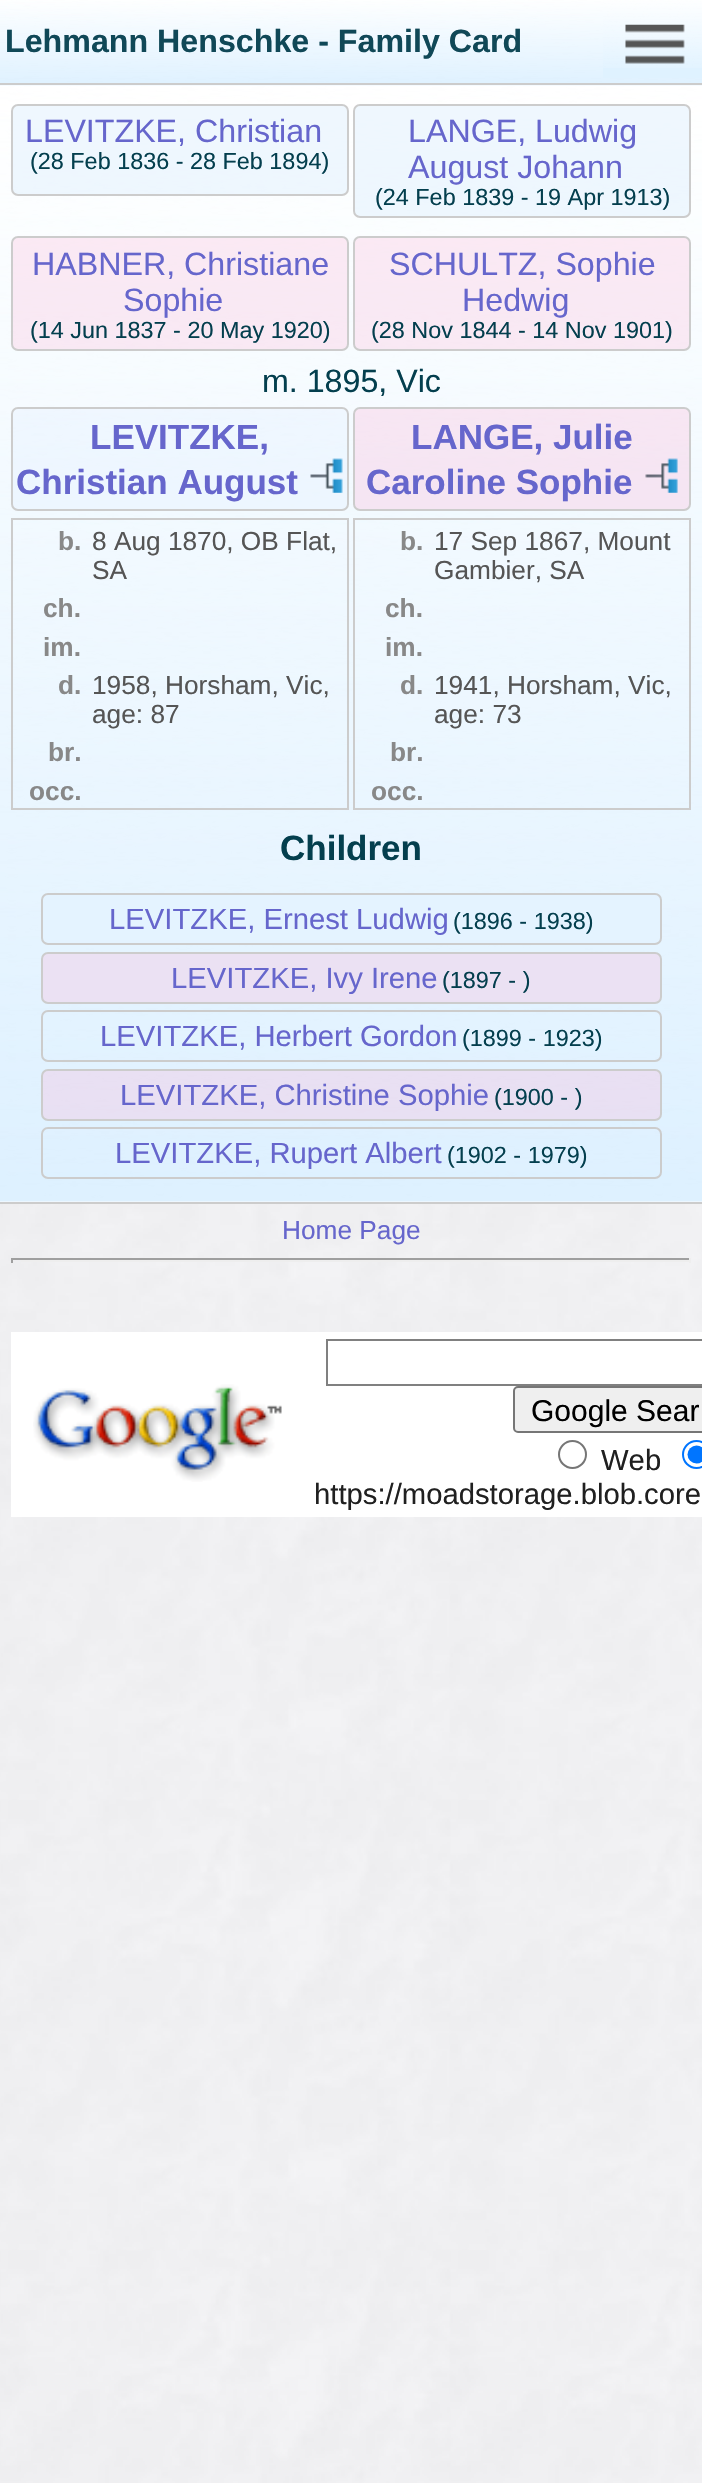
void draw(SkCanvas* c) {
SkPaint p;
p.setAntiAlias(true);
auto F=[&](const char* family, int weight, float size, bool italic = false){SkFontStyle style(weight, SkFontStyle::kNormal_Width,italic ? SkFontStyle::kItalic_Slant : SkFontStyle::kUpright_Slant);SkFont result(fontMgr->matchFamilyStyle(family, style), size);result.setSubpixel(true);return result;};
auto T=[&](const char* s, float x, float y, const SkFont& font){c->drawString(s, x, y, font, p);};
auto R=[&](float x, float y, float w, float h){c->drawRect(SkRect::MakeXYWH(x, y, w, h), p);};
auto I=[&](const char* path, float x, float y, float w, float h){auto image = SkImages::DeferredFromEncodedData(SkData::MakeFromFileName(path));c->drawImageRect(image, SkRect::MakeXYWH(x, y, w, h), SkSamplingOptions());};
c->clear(0xffffffff);
I("1.png",0,0,702,2483);
p.setColor(0xf2def1ff);
R(0,0,702,83);
p.setColor(0xffdef1ff);
R(0,85,702,1117);
I("5.png",0,85,702,1117);
I("2.png",0,0,702,86);
p.setColor(0xffcccccc);
R(0,83,702,2);
auto f1 = F("Liberation Sans",700,32.2);
p.setColor(0xff104857);
T("Lehmann Henschke - Family Card",5,52,f1);
p.setColor(0xf2def1ff);
R(603,0,99,78);
I("3.png",603,0,99,68);
I("4.png",625,24,60,40);
p.setColor(0xffcccccc);
R(0,1202,702,2);
p.setColor(0x82e0effe);
c->drawRoundRect(SkRect::MakeXYWH(12,105,336,90),6,6,p);
p.setStroke(true);
p.setStrokeWidth(2);
p.setColor(0xffcccccc);
c->drawRoundRect(SkRect::MakeXYWH(12,105,336,90),6,6,p);
auto f2 = F("Liberation Sans",400,32.2);
p.setStroke(false);
p.setColor(0xff6666cc);
T("LEVITZKE, Christian",25,142,f2);
auto f3 = F("Liberation Sans",400,23.4);
p.setColor(0xff043f4e);
T("(28 Feb 1836 - 28 Feb 1894)",30,169,f3);
p.setColor(0x82e0effe);
c->drawRoundRect(SkRect::MakeXYWH(354,105,336,112),6,6,p);
p.setStroke(true);
p.setColor(0xffcccccc);
c->drawRoundRect(SkRect::MakeXYWH(354,105,336,112),6,6,p);
p.setStroke(false);
p.setColor(0xff6666cc);
T("LANGE, Ludwig",408,142,f2);
T("August Johann",408,178,f2);
p.setColor(0xff043f4e);
T("(24 Feb 1839 - 19 Apr 1913)",375,205,f3);
p.setColor(0x47fcb7d6);
c->drawRoundRect(SkRect::MakeXYWH(12,237,336,113),6,6,p);
p.setStroke(true);
p.setColor(0xffcccccc);
c->drawRoundRect(SkRect::MakeXYWH(12,237,336,113),6,6,p);
p.setStroke(false);
p.setColor(0xff6666cc);
T("HABNER, Christiane",32,275,f2);
T("Sophie",123,311,f2);
p.setColor(0xff043f4e);
T("(14 Jun 1837 - 20 May 1920)",30,338,f3);
p.setColor(0x47fcb7d6);
c->drawRoundRect(SkRect::MakeXYWH(354,237,336,113),6,6,p);
p.setStroke(true);
p.setColor(0xffcccccc);
c->drawRoundRect(SkRect::MakeXYWH(354,237,336,113),6,6,p);
p.setStroke(false);
p.setColor(0xff6666cc);
T("SCHULTZ, Sophie",389,275,f2);
T("Hedwig",462,311,f2);
p.setColor(0xff043f4e);
T("(28 Nov 1844 - 14 Nov 1901)",371,338,f3);
T("m. 1895, Vic",262,392,f2);
p.setColor(0x4de0effe);
c->drawRoundRect(SkRect::MakeXYWH(12,408,336,102),6,6,p);
p.setStroke(true);
p.setColor(0xffcccccc);
c->drawRoundRect(SkRect::MakeXYWH(12,408,336,102),6,6,p);
auto f4 = F("Liberation Sans",700,35);
p.setStroke(false);
p.setColor(0xff6666cc);
T("LEVITZKE,",90,449,f4);
T("Christian August",16,494,f4);
I("6.png",310,458,33,35);
p.setColor(0x4dfcb7d6);
c->drawRoundRect(SkRect::MakeXYWH(354,408,336,102),6,6,p);
p.setStroke(true);
p.setColor(0xffcccccc);
c->drawRoundRect(SkRect::MakeXYWH(354,408,336,102),6,6,p);
p.setStroke(false);
p.setColor(0xff6666cc);
T("LANGE, Julie",411,449,f4);
T("Caroline Sophie",366,494,f4);
I("7.png",645,458,33,35);
p.setStroke(true);
p.setColor(0xffcccccc);
c->drawRect(SkRect::MakeXYWH(12,519,336,290),p);
auto f5 = F("Liberation Sans",700,26.25);
p.setStroke(false);
p.setColor(0xff888888);
T("b.",58,550,f5);
auto f6 = F("Liberation Sans",400,26.25);
p.setColor(0xff555555);
T("8 Aug 1870, OB Flat,",92,550,f6);
T("SA",92,579,f6);
p.setColor(0xff888888);
T("ch.",43,617,f5);
T("im.",43,656,f5);
T("d.",58,694,f5);
p.setColor(0xff555555);
T("1958, Horsham, Vic,",92,694,f6);
T("age: 87",92,723,f6);
p.setColor(0xff888888);
T("br.",48,761,f5);
T("occ.",29,800,f5);
p.setStroke(true);
p.setColor(0xffcccccc);
c->drawRect(SkRect::MakeXYWH(354,519,336,290),p);
p.setStroke(false);
p.setColor(0xff888888);
T("b.",400,550,f5);
p.setColor(0xff555555);
T("17 Sep 1867, Mount",434,550,f6);
T("Gambier, SA",434,579,f6);
p.setColor(0xff888888);
T("ch.",385,617,f5);
T("im.",385,656,f5);
T("d.",400,694,f5);
p.setColor(0xff555555);
T("1941, Horsham, Vic,",434,694,f6);
T("age: 73",434,723,f6);
p.setColor(0xff888888);
T("br.",390,761,f5);
T("occ.",371,800,f5);
p.setColor(0xff043f4e);
T("Children",280,860,f4);
p.setColor(0xffe4f3ff);
c->drawRoundRect(SkRect::MakeXYWH(42,894,619,50),6,6,p);
p.setStroke(true);
p.setColor(0xffcccccc);
c->drawRoundRect(SkRect::MakeXYWH(42,894,619,50),6,6,p);
auto f7 = F("Liberation Sans",400,29.25);
p.setStroke(false);
p.setColor(0xff6666cc);
T("LEVITZKE, Ernest Ludwig",109,929,f7);
p.setColor(0xff043f4e);
T("(1896 - 1938)",453,929,f3);
p.setColor(0xffebe1f3);
c->drawRoundRect(SkRect::MakeXYWH(42,953,619,50),6,6,p);
p.setStroke(true);
p.setColor(0xffcccccc);
c->drawRoundRect(SkRect::MakeXYWH(42,953,619,50),6,6,p);
p.setStroke(false);
p.setColor(0xff6666cc);
T("LEVITZKE, Ivy Irene",171,988,f7);
p.setColor(0xff043f4e);
T("(1897 - )",442,988,f3);
p.setStroke(true);
p.setColor(0xffcccccc);
c->drawRoundRect(SkRect::MakeXYWH(42,1011,619,50),6,6,p);
p.setStroke(false);
p.setColor(0xff6666cc);
T("LEVITZKE, Herbert Gordon",100,1046,f7);
p.setColor(0xff043f4e);
T("(1899 - 1923)",462,1046,f3);
p.setColor(0x4dfcb7d6);
c->drawRoundRect(SkRect::MakeXYWH(42,1070,619,50),6,6,p);
p.setStroke(true);
p.setColor(0xffcccccc);
c->drawRoundRect(SkRect::MakeXYWH(42,1070,619,50),6,6,p);
p.setStroke(false);
p.setColor(0xff6666cc);
T("LEVITZKE, Christine Sophie",120,1105,f7);
p.setColor(0xff043f4e);
T("(1900 - )",494,1105,f3);
p.setStroke(true);
p.setColor(0xffcccccc);
c->drawRoundRect(SkRect::MakeXYWH(42,1128,619,50),6,6,p);
p.setStroke(false);
p.setColor(0xff6666cc);
T("LEVITZKE, Rupert Albert",115,1163,f7);
p.setColor(0xff043f4e);
T("(1902 - 1979)",447,1163,f3);
p.setColor(0xff6666cc);
T("Home Page",282,1239,f6);
p.setColor(0xff9f9f9f);
R(11,1258,680,2);
p.setColor(0xffeeeeee);
R(689,1258,2,5);
R(21,1260,670,2);
p.setColor(0xff9f9f9f);
R(11,1258,2,5);
p.setColor(0xffffffff);
R(11,1332,691,185);
I("8.png",33,1384,249,98);
p.setStroke(true);
p.setColor(0xff808080);
c->drawRect(SkRect::MakeXYWH(327,1340,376,45),p);
p.setStroke(false);
p.setColor(0xffefefef);
c->drawRoundRect(SkRect::MakeXYWH(514,1387,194,45),4,4,p);
p.setStroke(true);
p.setColor(0xff767676);
c->drawRoundRect(SkRect::MakeXYWH(514,1387,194,45),4,4,p);
auto f8 = F("Liberation Sans",400,30);
p.setStroke(false);
p.setColor(0xff000000);
T("Google Sear",531,1421,f8);
p.setStroke(true);
p.setColor(0xff767676);
c->drawCircle(572.5,1454.5,13.5,p);
p.setStroke(false);
p.setColor(0xff202020);
T("Web",601,1470,f7);
p.setStroke(true);
p.setColor(0xff0075ff);
c->drawCircle(696.5,1454.5,13.5,p);
p.setStroke(false);
c->drawCircle(696.5,1454.5,9,p);
p.setColor(0xff202020);
T("https://moadstorage.blob.core",314,1504,f7);
}
